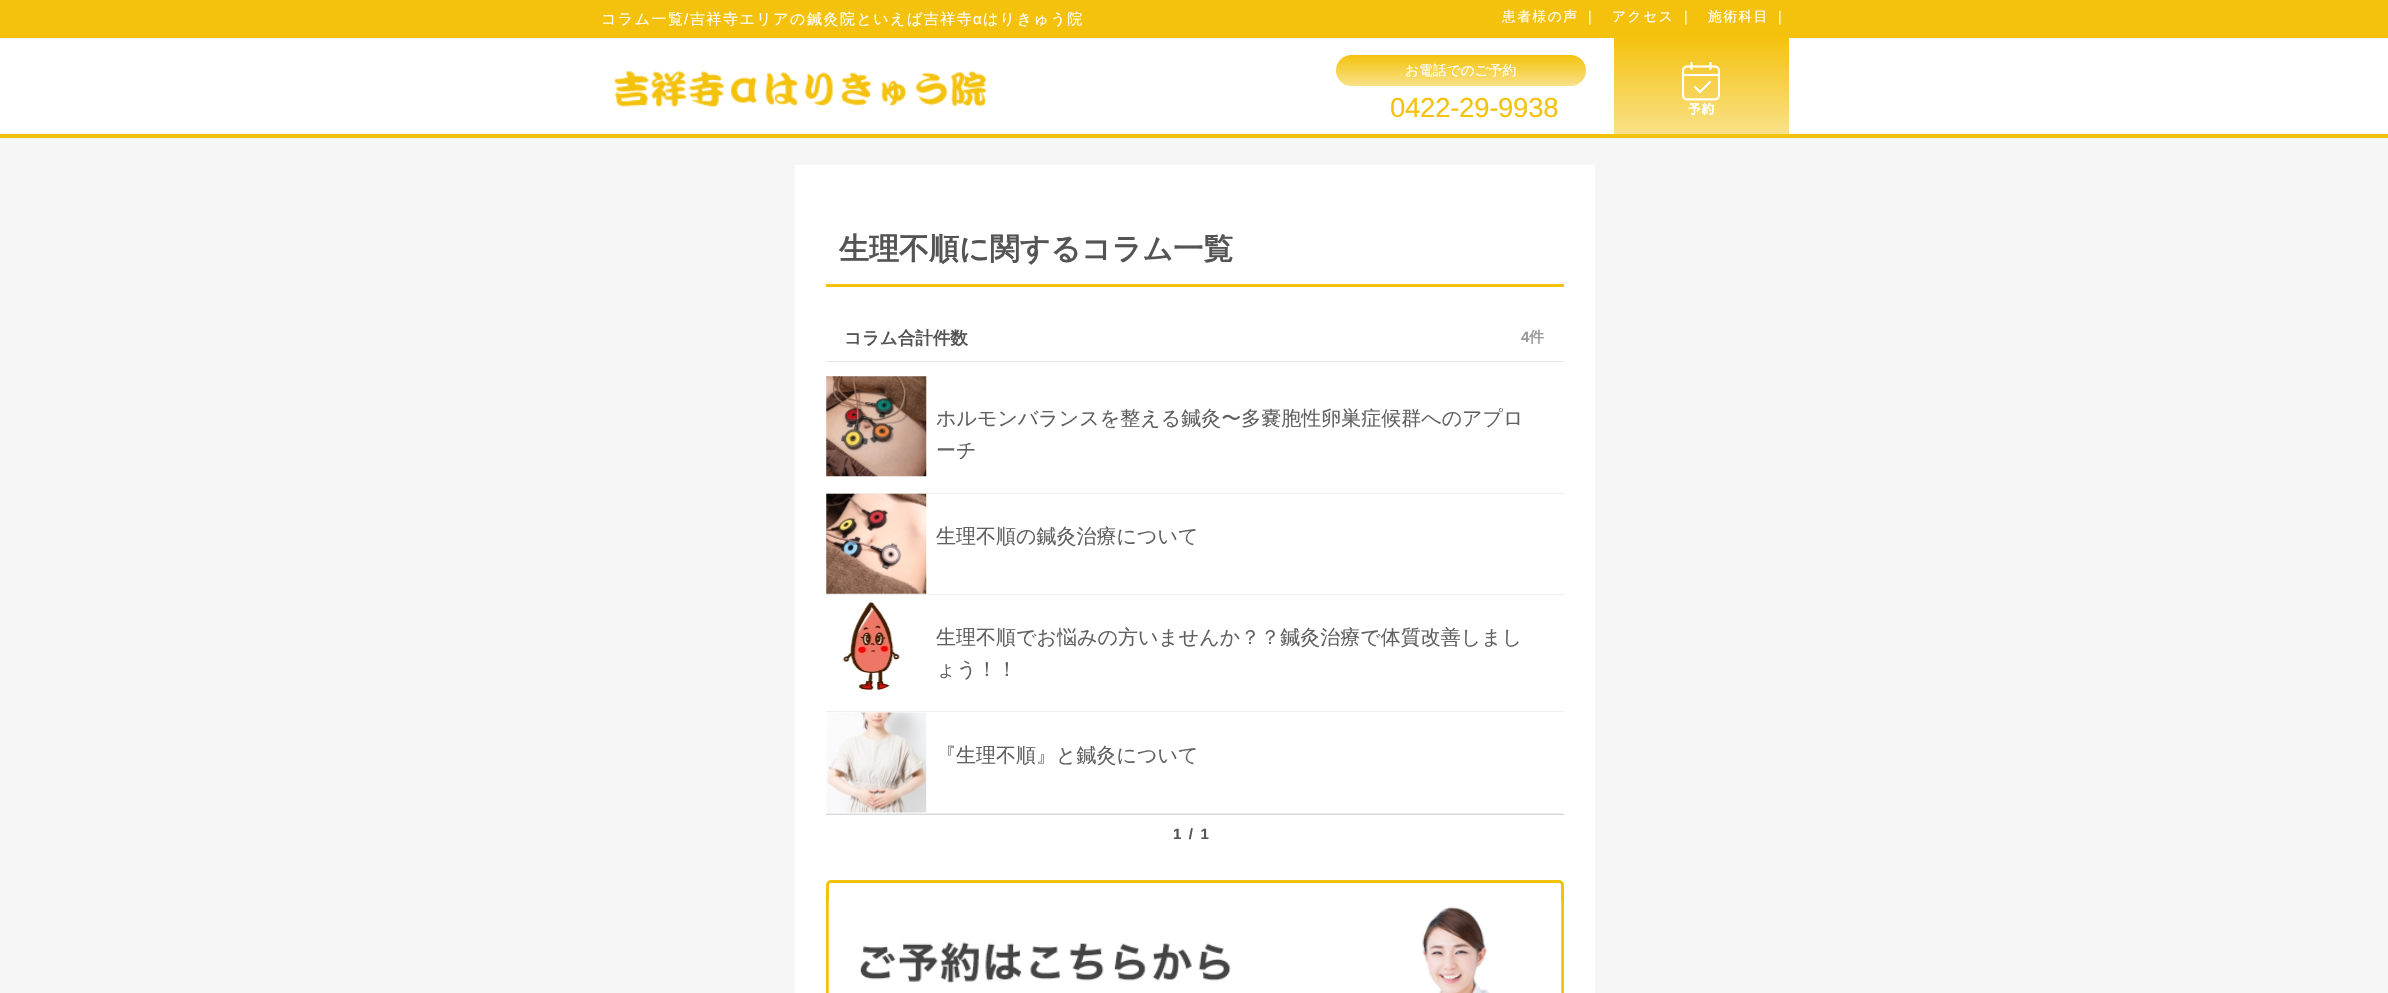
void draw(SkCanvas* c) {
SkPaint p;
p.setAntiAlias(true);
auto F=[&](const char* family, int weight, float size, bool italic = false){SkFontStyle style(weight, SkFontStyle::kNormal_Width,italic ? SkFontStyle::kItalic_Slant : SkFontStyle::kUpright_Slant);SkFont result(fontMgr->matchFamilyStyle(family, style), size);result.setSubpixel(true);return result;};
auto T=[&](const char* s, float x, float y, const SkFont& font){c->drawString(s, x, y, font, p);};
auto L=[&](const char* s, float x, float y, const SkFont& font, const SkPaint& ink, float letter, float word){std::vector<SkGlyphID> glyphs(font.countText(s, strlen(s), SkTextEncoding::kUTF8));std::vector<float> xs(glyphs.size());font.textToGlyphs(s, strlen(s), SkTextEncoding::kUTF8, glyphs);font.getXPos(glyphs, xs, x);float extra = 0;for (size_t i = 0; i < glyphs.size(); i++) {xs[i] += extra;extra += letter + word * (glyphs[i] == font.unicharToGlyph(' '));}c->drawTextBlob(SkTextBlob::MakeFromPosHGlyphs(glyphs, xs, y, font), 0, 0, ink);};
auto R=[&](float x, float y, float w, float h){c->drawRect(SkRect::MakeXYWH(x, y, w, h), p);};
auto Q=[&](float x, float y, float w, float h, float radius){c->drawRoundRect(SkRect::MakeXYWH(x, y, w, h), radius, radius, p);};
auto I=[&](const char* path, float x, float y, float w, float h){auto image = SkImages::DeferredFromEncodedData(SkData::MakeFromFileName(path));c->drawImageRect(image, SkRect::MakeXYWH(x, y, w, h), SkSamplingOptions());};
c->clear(0xffffffff);
p.setColor(0xfff4c20d);
R(0,134,2388,4);
R(0,0,2388,38);
auto f1 = F("WenQuanYi Zen Hei",500,15);
p.setColor(0xffffffff);
L("コラム一覧",601,24,f1,p,1.5,0);
auto f2 = F("Liberation Sans",400,15);
L("/",684,24,f2,p,1.5,0);
L("吉祥寺エリアの鍼灸院といえば吉祥寺",690,24,f1,p,1.5,0);
L("α",973,24,f2,p,1.5,0);
L("はりきゅう院",983,24,f1,p,1.5,0);
auto f3 = F("WenQuanYi Zen Hei",500,13.75);
L("患者様の声",1502,21,f3,p,1.5,0);
L("｜",1583,21,f3,p,1.5,0);
L("アクセス",1612,21,f3,p,1.5,0);
L("｜",1679,21,f3,p,1.5,0);
L("施術科目",1708,21,f3,p,1.5,0);
L("｜",1773,21,f3,p,1.5,0);
I("1.png",613,71,374,36);
{
const SkColor colors[] = {0xfff4c20d,0xfff9e189};
const float stops[] = {0,1};
const SkPoint ends[] = {{1461,55}, {1461,86}};
p.setShader(SkGradientShader::MakeLinear(ends, colors, stops, 2, SkTileMode::kClamp));
p.setAlpha(255);
}
Q(1336,55,250,31,15.5);
p.setShader(nullptr);
p.setColor(0xffffffff);
T("お電話でのご予約",1405,75,f3);
auto f4 = F("Liberation Sans",400,27.5);
p.setColor(0xfff4c20d);
L("0422-29-9938",1390,117,f4,p,-.25,0);
{
const SkColor colors[] = {0xfff4c20d,0xfff9e189};
const float stops[] = {0,1};
const SkPoint ends[] = {{1701,37}, {1701,134}};
p.setShader(SkGradientShader::MakeLinear(ends, colors, stops, 2, SkTileMode::kClamp));
p.setAlpha(255);
}
R(1614,38,175,96);
I("2.png",1682,62,38,53);
p.setShader(nullptr);
p.setColor(0xfff6f6f6);
R(0,138,2388,855);
p.setColor(0xffffffff);
R(795,165,800,828);
p.setColor(0xfff4c20d);
R(826,284,738,3);
auto f5 = F("WenQuanYi Zen Hei",700,30);
p.setColor(0xff555454);
T("生理不順に関するコラム一覧",839,259,f5);
p.setColor(0xffe7e7e7);
R(826,361,738,1);
auto f6 = F("WenQuanYi Zen Hei",700,17.5);
p.setColor(0xff555454);
T("コラム合計件数",844,344,f6);
auto f7 = F("Liberation Sans",700,15);
p.setColor(0xff999999);
T("4",1521,342,f7);
auto f8 = F("WenQuanYi Zen Hei",700,15);
T("件",1529,342,f8);
p.setColor(0xffeeeeee);
R(826,493,738,1);
I("3.png",826,376,101,101);
auto f9 = F("WenQuanYi Zen Hei",500,20);
p.setColor(0xff606060);
T("ホルモンバランスを整える鍼灸〜多嚢胞性卵巣症候群へのアプロ",936,425,f9);
T("ーチ",936,457,f9);
p.setColor(0xffeeeeee);
R(826,594,738,1);
I("4.png",826,493,101,101);
p.setColor(0xff606060);
T("生理不順の鍼灸治療について",936,543,f9);
p.setColor(0xffeeeeee);
R(826,711,738,1);
I("5.png",843,601,58,90);
p.setColor(0xff606060);
T("生理不順でお悩みの方いませんか？？鍼灸治療で体質改善しまし",936,644,f9);
T("ょう！！",936,676,f9);
p.setColor(0xffeeeeee);
R(826,813,738,1);
I("6.png",826,712,101,101);
p.setColor(0xff606060);
T("『生理不順』と鍼灸について",936,762,f9);
p.setColor(0xffd9d9d9);
R(826,814,738,1);
p.setColor(0xff555454);
L("1/1",1173,839,f7,p,7.5,0);
p.setStroke(true);
p.setStrokeWidth(3);
p.setColor(0xfff4c20d);
c->drawRoundRect(SkRect::MakeXYWH(827.5,881.5,735,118),3.5,3.5,p);
I("7.png",828,900,734,93);
}
